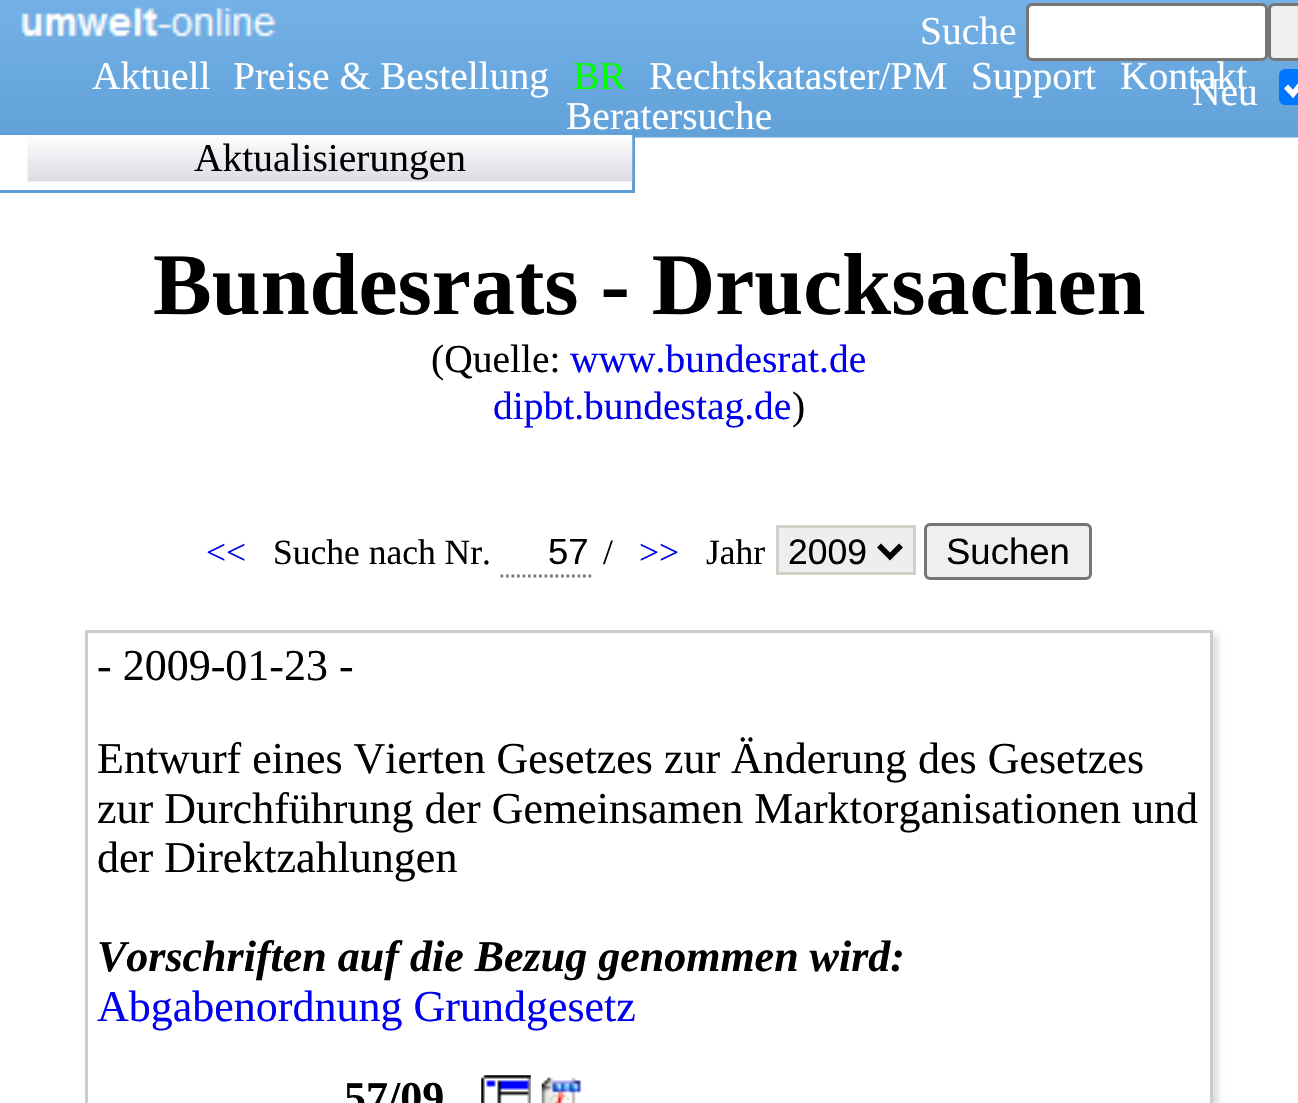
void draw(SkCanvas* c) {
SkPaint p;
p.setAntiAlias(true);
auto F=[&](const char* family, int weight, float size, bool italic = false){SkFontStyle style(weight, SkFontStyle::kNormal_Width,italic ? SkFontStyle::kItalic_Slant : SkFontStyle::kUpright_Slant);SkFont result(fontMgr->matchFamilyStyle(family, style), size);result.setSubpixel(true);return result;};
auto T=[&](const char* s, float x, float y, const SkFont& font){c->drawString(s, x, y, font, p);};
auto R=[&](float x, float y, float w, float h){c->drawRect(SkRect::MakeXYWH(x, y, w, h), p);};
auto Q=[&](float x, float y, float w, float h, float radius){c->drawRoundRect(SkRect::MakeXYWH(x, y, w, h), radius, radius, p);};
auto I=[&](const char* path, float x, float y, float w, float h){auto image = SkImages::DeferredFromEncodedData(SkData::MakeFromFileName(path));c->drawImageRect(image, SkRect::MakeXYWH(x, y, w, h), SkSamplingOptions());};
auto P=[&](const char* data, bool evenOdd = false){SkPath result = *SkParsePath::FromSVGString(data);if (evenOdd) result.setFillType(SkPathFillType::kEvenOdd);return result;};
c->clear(0xffffffff);
I("1.png",0,0,1298,138);
I("2.png",21,7,255,30);
auto f1 = F("Liberation Serif",400,39.5);
p.setColor(0xffffffff);
T("Suche",920,44,f1);
c->drawRoundRect(SkRect::MakeXYWH(1027.5,4.5,239,55),4.5,4.5,p);
p.setStroke(true);
p.setStrokeWidth(3);
p.setColor(0xff767676);
c->drawRoundRect(SkRect::MakeXYWH(1027.5,4.5,239,55),4.5,4.5,p);
p.setStroke(false);
p.setColor(0xffefefef);
c->drawRoundRect(SkRect::MakeXYWH(1269.5,4.5,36,55),4.5,4.5,p);
p.setStroke(true);
p.setColor(0xff767676);
c->drawRoundRect(SkRect::MakeXYWH(1269.5,4.5,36,55),4.5,4.5,p);
p.setStroke(false);
p.setColor(0xffffffff);
T("Kontakt",1120,89,f1);
T("Neu",1192,105,f1);
p.setColor(0xff0075ff);
Q(1279,69,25,36,6);
p.setStroke(true);
p.setStrokeWidth(5.7);
p.setColor(0xffffffff);
c->drawPath(P("M1286 86.5l7 7.5l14.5-18"),p);
p.setStroke(false);
T("Aktuell",92,89,f1);
T("Preise & Bestellung",233,89,f1);
p.setColor(0xff00ff00);
T("BR",573,89,f1);
p.setColor(0xffffffff);
T("Rechtskataster/PM",649,89,f1);
T("Support",971,89,f1);
T("Beratersuche",566,129,f1);
R(0,135,632,3);
p.setStroke(true);
p.setStrokeWidth(3);
p.setColor(0xff5d9fd6);
c->drawRect(SkRect::MakeXYWH(-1.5,133.5,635,58),p);
I("3.png",27,134,606,48);
p.setStroke(false);
p.setColor(0xff000000);
T("Aktualisierungen",194,171,f1);
auto f2 = F("Liberation Serif",700,88);
T("Bundesrats - Drucksachen",153,314,f2);
T("(Quelle:",431,372,f1);
p.setColor(0xff0000ee);
T("www.bundesrat.de",570,372,f1);
T("dipbt.bundestag.de",493,419,f1);
p.setColor(0xff000000);
T(")",792,419,f1);
auto f3 = F("Liberation Serif",400,35.5);
p.setColor(0xff0000ee);
T("<<",206,564,f3);
p.setColor(0xff000000);
T("Suche nach Nr.",273,564,f3);
p.setStroke(true);
p.setStrokeWidth(2.8);
p.setColor(0xff777777);
p.setPathEffect(SkDashPathEffect::Make({{2.75f,2.75f}}, 0));
c->drawPath(P("M500.5 576h93.5"),p);
p.setPathEffect(nullptr);
auto f4 = F("Liberation Sans",400,36.5);
p.setStroke(false);
p.setColor(0xff000000);
T("57",548,564,f4);
T("/",603,564,f3);
p.setColor(0xff0000ee);
T(">>",639,564,f3);
p.setColor(0xff000000);
T("Jahr",706,564,f3);
p.setColor(0xffeeeeee);
c->drawRect(SkRect::MakeXYWH(777.5,526.5,137,47),p);
p.setStroke(true);
p.setStrokeWidth(3);
p.setColor(0xffd4d0c8);
c->drawRect(SkRect::MakeXYWH(777.5,526.5,137,47),p);
p.setStrokeWidth(5.5);
p.setColor(0xff000000);
c->drawPath(P("M879 545.5l11 11l11-11"),p);
auto f5 = F("Liberation Sans",400,35.5);
p.setStroke(false);
T("2009",788,564,f5);
p.setColor(0xffefefef);
c->drawRoundRect(SkRect::MakeXYWH(925.5,524.5,165,54),4.5,4.5,p);
p.setStroke(true);
p.setStrokeWidth(3);
p.setColor(0xff767676);
c->drawRoundRect(SkRect::MakeXYWH(925.5,524.5,165,54),4.5,4.5,p);
p.setStroke(false);
p.setColor(0xff000000);
T("Suchen",946,564,f4);
c->save();
c->clipPath(P("M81 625h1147v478h-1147zm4 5h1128v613h-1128z",true),true);
p.setColor(0xffdddddd);
p.setMaskFilter(SkMaskFilter::MakeBlur(kNormal_SkBlurStyle, 3));
c->drawRect(SkRect::MakeXYWH(91,635,1127,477),p);
p.setMaskFilter(nullptr);
c->restore();
p.setStroke(true);
p.setColor(0xffcccccc);
c->drawRect(SkRect::MakeXYWH(86.5,631.5,1125,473),p);
auto f6 = F("Liberation Serif",400,44);
p.setStroke(false);
p.setColor(0xff000000);
T("- 2009-01-23 -",97,680,f6);
T("Entwurf eines Vierten Gesetzes zur Änderung des Gesetzes",97,773,f6);
T("zur Durchführung der Gemeinsamen Marktorganisationen und",97,823,f6);
T("der Direktzahlungen",97,872,f6);
auto f7 = F("Liberation Serif",700,44,true);
T("Vorschriften auf die Bezug genommen wird:",97,971,f7);
p.setColor(0xff0000ee);
T("Abgabenordnung Grundgesetz",97,1021,f6);
auto f8 = F("Liberation Serif",700,44);
p.setColor(0xff000000);
T("57/09",344,1112,f8);
I("4.png",481,1075,50,28);
I("5.png",541,1077,41,26);
}
